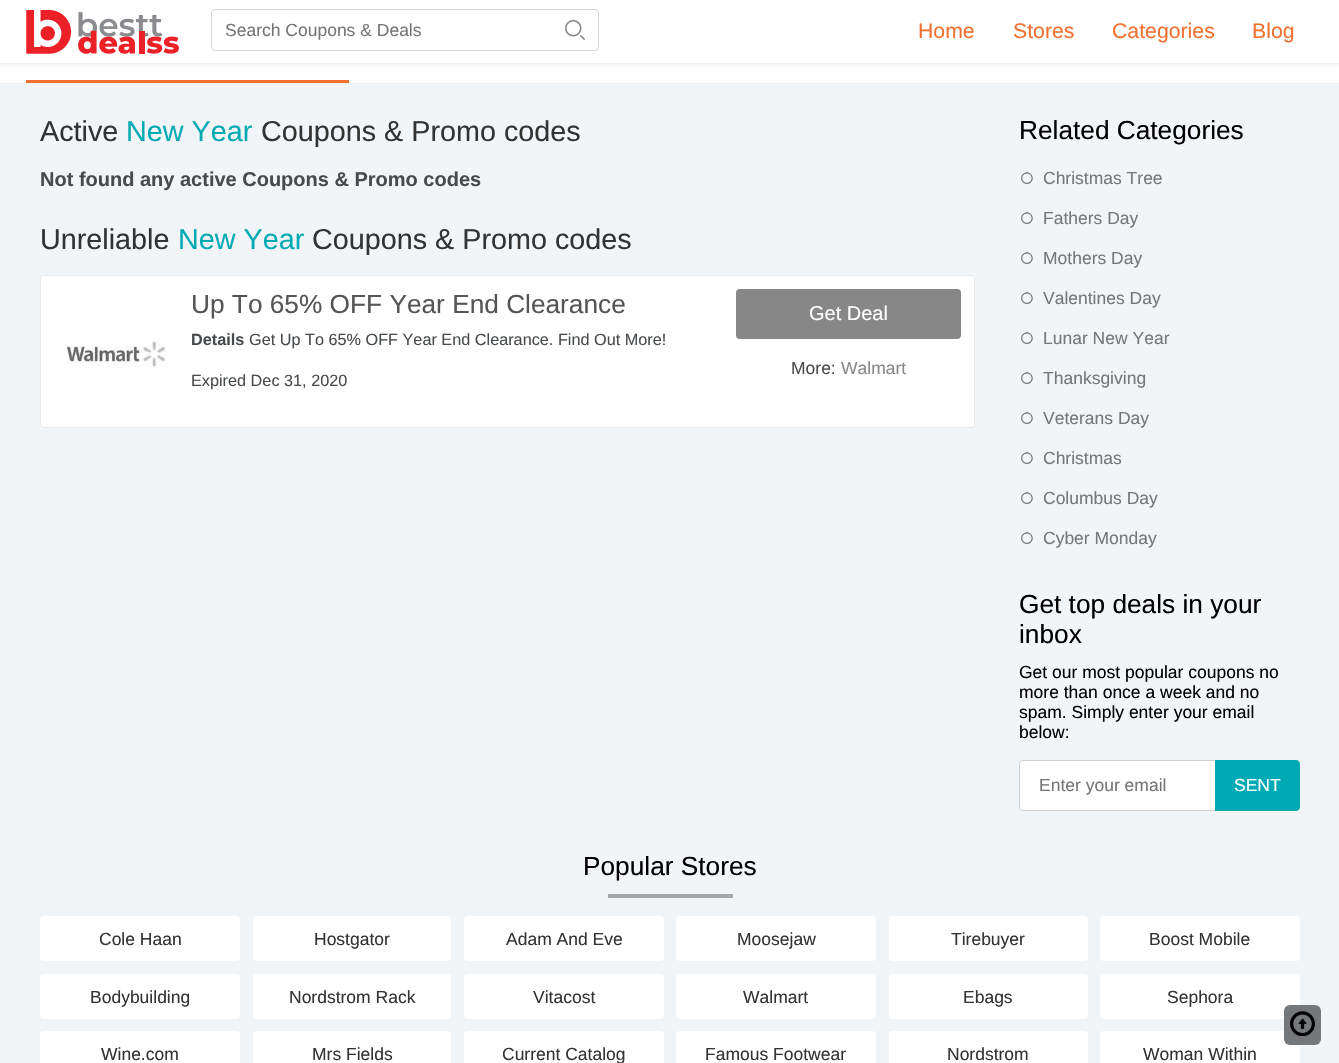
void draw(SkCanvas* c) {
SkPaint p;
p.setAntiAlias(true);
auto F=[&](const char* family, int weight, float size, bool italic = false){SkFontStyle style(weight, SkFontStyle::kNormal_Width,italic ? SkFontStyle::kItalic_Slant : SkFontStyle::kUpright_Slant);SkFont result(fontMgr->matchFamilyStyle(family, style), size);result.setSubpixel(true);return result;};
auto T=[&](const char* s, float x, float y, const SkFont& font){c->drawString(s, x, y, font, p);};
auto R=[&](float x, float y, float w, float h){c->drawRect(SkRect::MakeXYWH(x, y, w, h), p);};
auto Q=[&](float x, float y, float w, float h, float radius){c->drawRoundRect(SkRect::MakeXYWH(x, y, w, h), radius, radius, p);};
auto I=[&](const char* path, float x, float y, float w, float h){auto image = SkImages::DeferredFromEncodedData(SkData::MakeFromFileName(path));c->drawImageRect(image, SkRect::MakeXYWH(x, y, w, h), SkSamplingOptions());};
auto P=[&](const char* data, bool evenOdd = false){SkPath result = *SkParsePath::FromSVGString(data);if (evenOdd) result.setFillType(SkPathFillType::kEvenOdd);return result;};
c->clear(0xfff2f5f7);
p.setColor(0xffffffff);
R(0,63,1339,20);
p.setColor(0x33373737);
p.setMaskFilter(SkMaskFilter::MakeBlur(kNormal_SkBlurStyle, 2.5));
c->drawRect(SkRect::MakeXYWH(0,0,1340,63),p);
p.setMaskFilter(nullptr);
p.setColor(0xffffffff);
R(0,0,1339,63);
I("1.png",26,10,153,44);
p.setStroke(true);
p.setStrokeWidth(1);
p.setColor(0xffd5d8db);
c->drawRoundRect(SkRect::MakeXYWH(211.5,9.5,387,41),3.5,3.5,p);
auto f1 = F("Liberation Sans",400,17.5);
p.setStroke(false);
p.setColor(0xff757575);
T("Search Coupons & Deals",225,36,f1);
I("2.png",565,20,20,20);
auto f2 = F("Liberation Sans",400,21.25);
p.setColor(0xfff27130);
T("Home",918,38,f2);
T("Stores",1013,38,f2);
T("Categories",1112,38,f2);
T("Blog",1252,38,f2);
p.setColor(0xffeeeeee);
R(0,83,1339,1);
p.setColor(0xfff27130);
R(26,80,323,3);
auto f3 = F("Liberation Sans",400,28.75);
p.setColor(0xff333333);
T("Active",40,141,f3);
p.setColor(0xff00aab4);
T("New Year",126,141,f3);
p.setColor(0xff333333);
T("Coupons & Promo codes",261,141,f3);
auto f4 = F("Liberation Sans",700,20);
p.setColor(0xff484b4d);
T("Not found any active Coupons & Promo codes",40,186,f4);
p.setColor(0xff333333);
T("Unreliable",40,249,f3);
p.setColor(0xff00aab4);
T("New Year",178,249,f3);
p.setColor(0xff333333);
T("Coupons & Promo codes",312,249,f3);
p.setColor(0xffffffff);
c->drawRoundRect(SkRect::MakeXYWH(40.5,275.5,934,152),3.5,3.5,p);
p.setStroke(true);
p.setColor(0xffe9e9e9);
c->drawRoundRect(SkRect::MakeXYWH(40.5,275.5,934,152),3.5,3.5,p);
I("3.png",67,341,99,27);
auto f5 = F("Liberation Sans",400,26.25);
p.setStroke(false);
p.setColor(0xff555555);
T("Up To 65% OFF Year End Clearance",191,313,f5);
auto f6 = F("Liberation Sans",700,16.25);
p.setColor(0xff484b4d);
T("Details",191,345,f6);
auto f7 = F("Liberation Sans",400,16.25);
T("Get Up To 65% OFF Year End Clearance. Find Out More!",249,345,f7);
T("Expired Dec 31, 2020",191,386,f7);
p.setColor(0xff878787);
Q(736,289,225,50,4);
auto f8 = F("Liberation Sans",400,20);
p.setColor(0xffffffff);
T("Get Deal",809,320,f8);
p.setColor(0xff484b4d);
T("More:",791,374,f1);
p.setColor(0xff878787);
T("Walmart",841,374,f1);
p.setColor(0xff000000);
T("Related Categories",1019,139,f5);
auto f9 = F("Liberation Sans",700,26.25);
p.setColor(0xff75787b);
T("○",1019,186,f9);
T("Christmas Tree",1043,184,f1);
T("○",1019,226,f9);
T("Fathers Day",1043,224,f1);
T("○",1019,266,f9);
T("Mothers Day",1043,264,f1);
T("○",1019,306,f9);
T("Valentines Day",1043,304,f1);
T("○",1019,346,f9);
T("Lunar New Year",1043,344,f1);
T("○",1019,386,f9);
T("Thanksgiving",1043,384,f1);
T("○",1019,426,f9);
T("Veterans Day",1043,424,f1);
T("○",1019,466,f9);
T("Christmas",1043,464,f1);
T("○",1019,506,f9);
T("Columbus Day",1043,504,f1);
T("○",1019,546,f9);
T("Cyber Monday",1043,544,f1);
p.setColor(0xff000000);
T("Get top deals in your",1019,613,f5);
T("inbox",1019,643,f5);
T("Get our most popular coupons no",1019,678,f1);
T("more than once a week and no",1019,698,f1);
T("spam. Simply enter your email",1019,718,f1);
T("below:",1019,738,f1);
p.setColor(0xffffffff);
c->drawRoundRect(SkRect::MakeXYWH(1019.5,760.5,280,50),3.5,3.5,p);
p.setStroke(true);
p.setColor(0xffd1d1d1);
c->drawRoundRect(SkRect::MakeXYWH(1019.5,760.5,280,50),3.5,3.5,p);
p.setStroke(false);
p.setColor(0xff757575);
T("Enter your email",1039,791,f1);
p.setColor(0xff00aab4);
c->drawPath(P("M1215 760h81c2 0 4 2 4 4v43c0 2-2 4-4 4h-81z"),p);
p.setColor(0xffffffff);
T("SENT",1234,791,f1);
p.setColor(0xff000000);
T("Popular Stores",583,875,f5);
p.setColor(0xffa5a8ab);
R(608,894,125,4);
p.setColor(0xffffffff);
Q(40,916,200,45,4);
p.setColor(0xff333333);
T("Cole Haan",99,945,f1);
p.setColor(0xffffffff);
Q(253,916,198,45,4);
p.setColor(0xff333333);
T("Hostgator",314,945,f1);
p.setColor(0xffffffff);
Q(464,916,200,45,4);
p.setColor(0xff333333);
T("Adam And Eve",506,945,f1);
p.setColor(0xffffffff);
Q(676,916,200,45,4);
p.setColor(0xff333333);
T("Moosejaw",737,945,f1);
p.setColor(0xffffffff);
Q(889,916,199,45,4);
p.setColor(0xff333333);
T("Tirebuyer",951,945,f1);
p.setColor(0xffffffff);
Q(1100,916,200,45,4);
p.setColor(0xff333333);
T("Boost Mobile",1149,945,f1);
p.setColor(0xffffffff);
Q(40,974,200,45,4);
p.setColor(0xff333333);
T("Bodybuilding",90,1003,f1);
p.setColor(0xffffffff);
Q(253,974,198,45,4);
p.setColor(0xff333333);
T("Nordstrom Rack",289,1003,f1);
p.setColor(0xffffffff);
Q(464,974,200,45,4);
p.setColor(0xff333333);
T("Vitacost",533,1003,f1);
p.setColor(0xffffffff);
Q(676,974,200,45,4);
p.setColor(0xff333333);
T("Walmart",743,1003,f1);
p.setColor(0xffffffff);
Q(889,974,199,45,4);
p.setColor(0xff333333);
T("Ebags",963,1003,f1);
p.setColor(0xffffffff);
Q(1100,974,200,45,4);
p.setColor(0xff333333);
T("Sephora",1167,1003,f1);
p.setColor(0xffffffff);
Q(40,1031,200,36,4);
p.setColor(0xff333333);
T("Wine.com",101,1060,f1);
p.setColor(0xffffffff);
Q(253,1031,198,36,4);
p.setColor(0xff333333);
T("Mrs Fields",312,1060,f1);
p.setColor(0xffffffff);
Q(464,1031,200,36,4);
p.setColor(0xff333333);
T("Current Catalog",502,1060,f1);
p.setColor(0xffffffff);
Q(676,1031,200,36,4);
p.setColor(0xff333333);
T("Famous Footwear",705,1060,f1);
p.setColor(0xffffffff);
Q(889,1031,199,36,4);
p.setColor(0xff333333);
T("Nordstrom",947,1060,f1);
p.setColor(0xffffffff);
Q(1100,1031,200,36,4);
p.setColor(0xff333333);
T("Woman Within",1143,1060,f1);
p.setColor(0xff75787b);
Q(1284,1005,37,40,6);
I("4.png",1290,1011,25,25);
}
